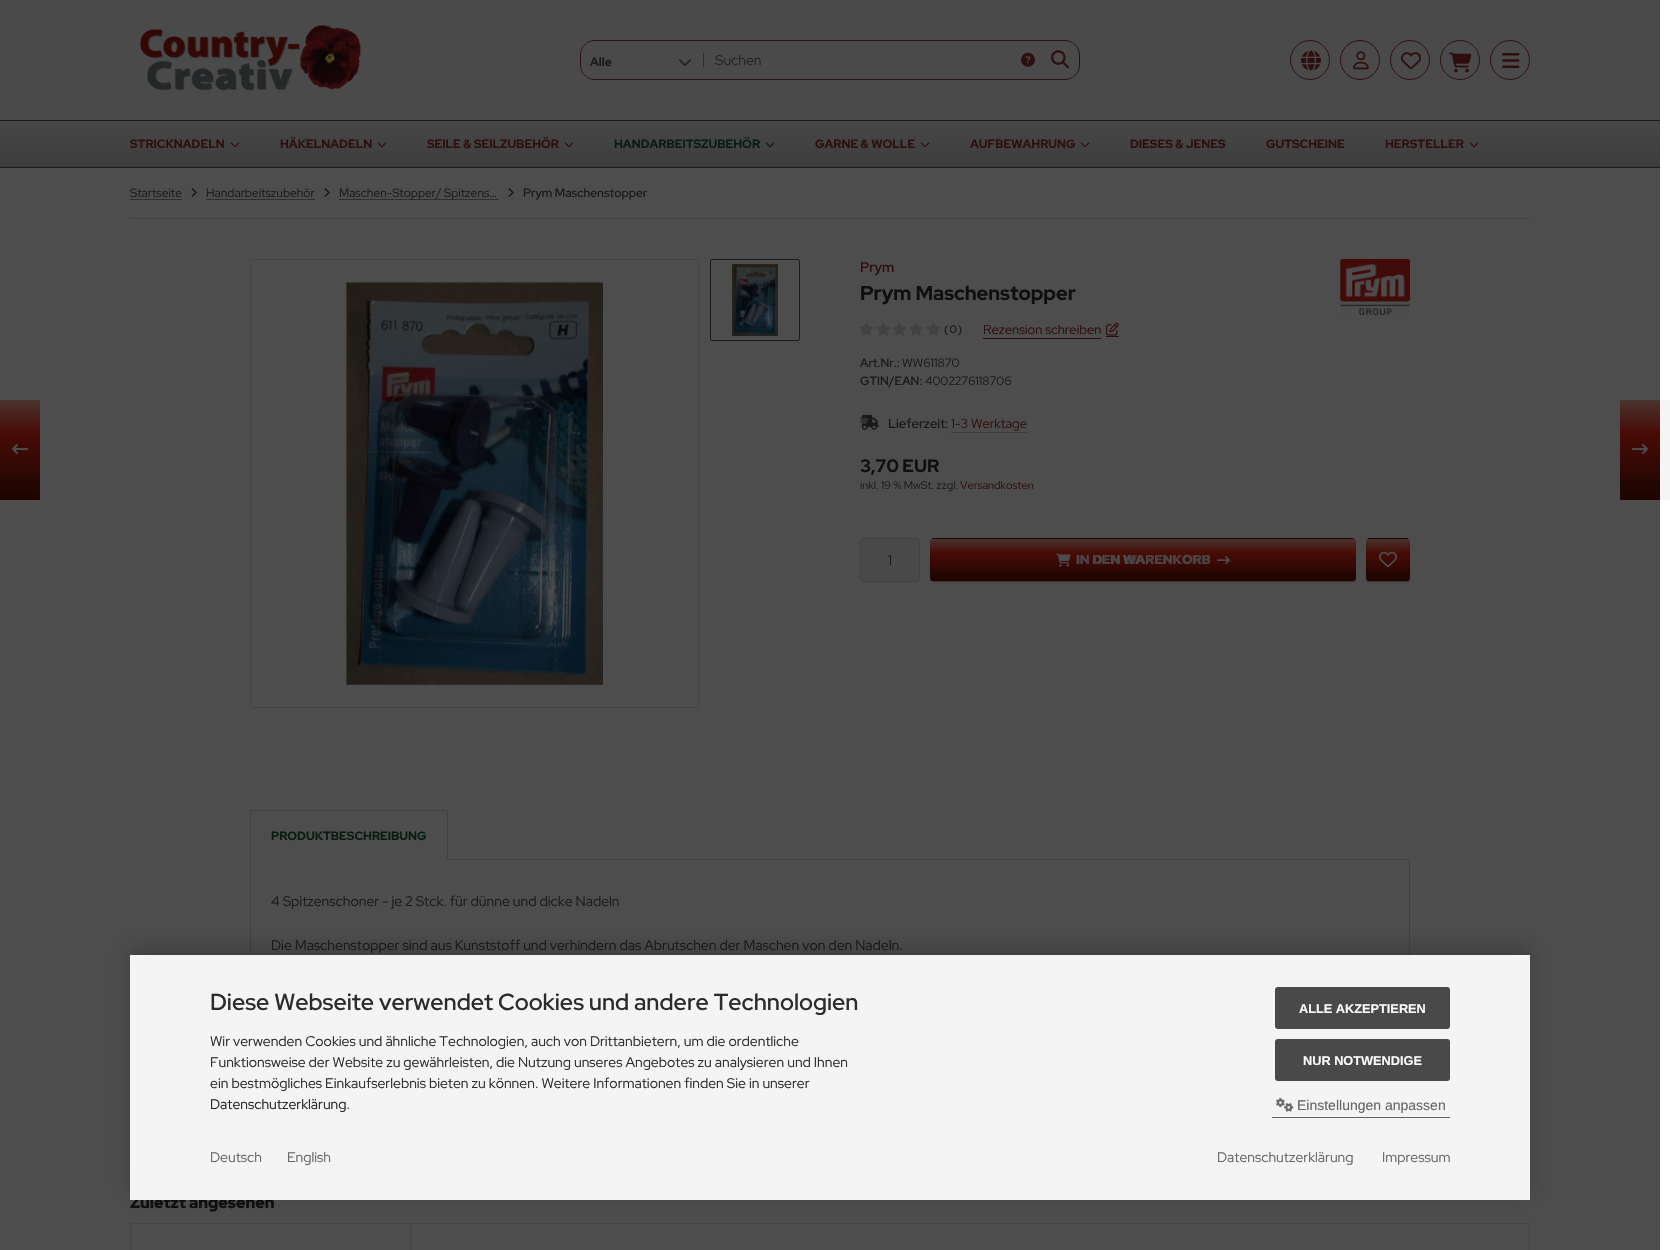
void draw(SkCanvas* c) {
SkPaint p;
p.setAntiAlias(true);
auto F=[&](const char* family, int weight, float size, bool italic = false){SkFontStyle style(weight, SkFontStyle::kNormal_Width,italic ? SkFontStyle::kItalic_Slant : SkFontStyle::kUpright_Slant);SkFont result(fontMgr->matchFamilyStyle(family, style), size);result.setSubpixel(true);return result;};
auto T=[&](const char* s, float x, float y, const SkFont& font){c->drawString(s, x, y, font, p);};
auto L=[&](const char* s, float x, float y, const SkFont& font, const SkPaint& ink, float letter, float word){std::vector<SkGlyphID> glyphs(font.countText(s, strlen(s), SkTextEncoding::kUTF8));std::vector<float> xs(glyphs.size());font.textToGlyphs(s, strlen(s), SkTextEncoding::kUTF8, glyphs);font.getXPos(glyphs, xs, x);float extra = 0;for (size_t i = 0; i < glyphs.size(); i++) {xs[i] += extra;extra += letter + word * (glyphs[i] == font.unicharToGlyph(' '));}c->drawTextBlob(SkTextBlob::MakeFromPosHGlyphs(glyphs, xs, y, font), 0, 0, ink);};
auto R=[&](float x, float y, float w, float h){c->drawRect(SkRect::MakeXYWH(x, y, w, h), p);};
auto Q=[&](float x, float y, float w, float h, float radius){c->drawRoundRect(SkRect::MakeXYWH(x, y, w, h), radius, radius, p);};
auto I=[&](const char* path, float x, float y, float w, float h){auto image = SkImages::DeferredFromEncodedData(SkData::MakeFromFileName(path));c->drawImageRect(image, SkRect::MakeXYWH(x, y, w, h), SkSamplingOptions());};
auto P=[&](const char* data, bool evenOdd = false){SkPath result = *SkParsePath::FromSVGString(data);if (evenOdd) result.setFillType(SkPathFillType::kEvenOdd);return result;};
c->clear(0xffffffff);
p.setColor(0xff4d4d4d);
R(0,168,1660,1082);
p.setColor(0xff4a4a4a);
R(0,0,1660,120);
I("1.png",140,25,221,66);
p.setColor(0xff2e0f0f);
c->drawPath(P("M595 40h105v40h-105c-8 0-15-7-15-15v-10c0-8 7-15 15-15zm0 1h105v38h-105c-8 0-14-6-14-14v-10c0-8 6-14 14-14z",true),p);
p.setColor(0xff4a4a4a);
c->drawPath(P("M596 41h104v38h-104c-8.5 0-15-6.5-15-15v-8c0-8.5 6.5-15 15-15z"),p);
auto f1 = F("Red Hat Display",700,12);
p.setColor(0xff1a1a1a);
T("Alle",590,66,f1);
I("2.png",679,59,12,7);
p.setColor(0xff2e2e2e);
R(703,53,1,14);
p.setColor(0xff2e0f0f);
R(700,40,340,1);
R(700,79,340,1);
auto f2 = F("Red Hat Display",400,14);
p.setColor(0xff232323);
T("Suchen",715,65,f2);
I("3.png",1021,52,14,15);
p.setColor(0xff2e0f0f);
c->drawPath(P("M1040 40h25c8 0 15 7 15 15v10c0 8-7 15-15 15h-25zm0 1h25c8 0 14 6 14 14v10c0 8-6 14-14 14h-25z",true),p);
I("4.png",1051,50,18,19);
p.setStroke(true);
p.setStrokeWidth(1);
c->drawCircle(1310,60,19.5,p);
I("5.png",1301,50,20,21);
c->drawCircle(1360,60,19.5,p);
I("6.png",1353,51,16,19);
c->drawCircle(1410,60,19.5,p);
I("7.png",1401,52,20,18);
c->drawCircle(1460,60,19.5,p);
I("8.png",1449,52,23,21);
c->drawCircle(1510,60,19.5,p);
I("9.png",1502,53,18,15);
p.setStroke(false);
{
const SkColor colors[] = {0xff474747,0xff3d3d3d};
const float stops[] = {0,1};
const SkPoint ends[] = {{830,121}, {830,167}};
p.setShader(SkGradientShader::MakeLinear(ends, colors, stops, 2, SkTileMode::kClamp));
p.setAlpha(255);
}
R(0,121,1660,46);
p.setShader(nullptr);
p.setColor(0xff1a1a1a);
R(0,120,1660,1);
R(0,167,1660,1);
p.setColor(0xff2e0f0f);
T("STRICKNADELN",130,148,f1);
I("10.png",230,142,10,6);
T("HÄKELNADELN",280,148,f1);
I("10.png",377,142,10,6);
T("SEILE & SEILZUBEHÖR",427,148,f1);
I("10.png",564,142,10,6);
p.setColor(0xff091c12);
T("HANDARBEITSZUBEHÖR",614,148,f1);
I("11.png",765,142,10,6);
p.setColor(0xff2e0f0f);
T("GARNE & WOLLE",815,148,f1);
I("10.png",920,142,10,6);
T("AUFBEWAHRUNG",970,148,f1);
I("10.png",1080,142,10,6);
T("DIESES & JENES",1130,148,f1);
T("GUTSCHEINE",1266,148,f1);
T("HERSTELLER",1385,148,f1);
I("10.png",1469,142,10,6);
p.setColor(0xff414141);
R(130,218,1400,1);
p.setColor(0xff2e2e2e);
R(130,199,52,1);
auto f3 = F("Red Hat Display",400,12);
p.setColor(0xff1a1a1a);
T("Startseite",130,197,f3);
I("12.png",191,188,6,9);
p.setColor(0xff2e2e2e);
R(206,199,109,1);
p.setColor(0xff1a1a1a);
T("Handarbeitszubehör",206,197,f3);
I("12.png",324,188,6,9);
p.setColor(0xff2e2e2e);
R(339,199,160,1);
p.setColor(0xff1a1a1a);
T("Maschen-Stopper/ Spitzens…",339,197,f3);
I("12.png",508,188,6,9);
auto f4 = F("Red Hat Display",600,12);
T("Prym Maschenstopper",523,197,f4);
p.setStroke(true);
p.setColor(0xff444444);
c->drawRoundRect(SkRect::MakeXYWH(250.5,259.5,448,448),1.5,1.5,p);
I("13.png",346,282,257,403);
p.setColor(0xff1a1a1a);
c->drawRoundRect(SkRect::MakeXYWH(710.5,259.5,89,81),1.5,1.5,p);
I("14.png",732,264,46,72);
auto f5 = F("Red Hat Display",600,14);
p.setStroke(false);
p.setColor(0xff2e0f0f);
T("Prym",860,272,f5);
I("15.png",1340,259,70,56);
auto f6 = F("Red Hat Display",700,20);
p.setColor(0xff0f0f0f);
T("Prym Maschenstopper",860,300,f6);
I("16.png",859,322,14,14);
I("16.png",876,322,14,14);
I("16.png",892,322,14,14);
I("16.png",909,322,14,14);
I("16.png",926,322,14,14);
auto f7 = F("Red Hat Display",600,11);
p.setColor(0xff1a1a1a);
L("(0)",944,333,f7,p,1,0);
auto f8 = F("Red Hat Display",400,13);
p.setColor(0xff2e0f0f);
T("Rezension schreiben",983,334,f8);
R(983,338,118,1);
R(1106,336,13,1);
I("17.png",1106,322,13,14);
p.setColor(0xff1a1a1a);
T("Art.Nr.:",860,367,f4);
T("WW611870",902,367,f3);
T("GTIN/EAN:",860,385,f4);
T("4002276118706",925,385,f3);
I("18.png",860,414,19,16);
auto f9 = F("Red Hat Display",600,13);
T("Lieferzeit:",888,428,f9);
p.setColor(0xff2e0f0f);
T("1-3 Werktage",951,428,f8);
p.setColor(0xff3d3d3d);
R(951,432,76,1);
auto f10 = F("Red Hat Display",700,18);
p.setColor(0xff0f0f0f);
T("3,70 EUR",860,472,f10);
auto f11 = F("Red Hat Display",400,11);
p.setColor(0xff1a1a1a);
T("inkl. 19 % MwSt. zzgl.",860,489,f11);
p.setColor(0xff2e0f0f);
T("Versandkosten",960,489,f11);
p.setColor(0xff494949);
c->drawRoundRect(SkRect::MakeXYWH(860.5,538.5,59,43),3.5,3.5,p);
p.setStroke(true);
p.setColor(0xff414141);
c->drawRoundRect(SkRect::MakeXYWH(860.5,538.5,59,43),3.5,3.5,p);
p.setStroke(false);
p.setColor(0xff1a1a1a);
T("1",888,565,f2);
c->save();
c->clipPath(P("M934 538h418c2 0 4 2 4 4v36c0 2-2 4-4 4h-418c-2 0-4-2-4-4v-36c0-2 2-4 4-4z"),true);
{
const SkColor colors[] = {0xff4a3330,0xff491f1a,0xff470c05,0xff330804,0xff240602,0xff1d0502};
const float stops[] = {0,.17,.33,.67,.83,1};
const SkPoint ends[] = {{1143,497}, {1143,539}};
p.setShader(SkGradientShader::MakeLinear(ends, colors, stops, 6, SkTileMode::kClamp));
p.setAlpha(255);
}
R(930,538,426,1);
{
const SkColor colors[] = {0xff4a3330,0xff491f1a,0xff470c05,0xff330804,0xff240602,0xff1d0502};
const float stops[] = {0,.17,.33,.67,.83,1};
const SkPoint ends[] = {{1143,539}, {1143,581}};
p.setShader(SkGradientShader::MakeLinear(ends, colors, stops, 6, SkTileMode::kClamp));
p.setAlpha(255);
}
R(930,539,426,42);
{
const SkColor colors[] = {0xff4a3330,0xff491f1a,0xff470c05,0xff330804,0xff240602,0xff1d0502};
const float stops[] = {0,.17,.33,.67,.83,1};
const SkPoint ends[] = {{1143,581}, {1143,623}};
p.setShader(SkGradientShader::MakeLinear(ends, colors, stops, 6, SkTileMode::kClamp));
p.setAlpha(255);
}
R(930,581,426,1);
c->restore();
p.setStroke(true);
p.setShader(nullptr);
p.setColor(0x1a000000);
c->drawRoundRect(SkRect::MakeXYWH(930.5,538.5,425,43),3.5,3.5,p);
I("19.png",1056,553,15,14);
auto f12 = F("Red Hat Display",900,13);
p.setStroke(false);
p.setColor(0xff4d4d4d);
T("IN DEN WARENKORB",1076,564,f12);
auto f13 = F("Liberation Sans",400,13);
p.setColor(0xff493d3c);
T("IN DEN WARENKORB",1077,564,f13);
I("20.png",1217,556,13,9);
c->save();
c->clipPath(P("M1370 538h36c2 0 4 2 4 4v36c0 2-2 4-4 4h-36c-2 0-4-2-4-4v-36c0-2 2-4 4-4z"),true);
{
const SkColor colors[] = {0xff4a3330,0xff491f1a,0xff470c05,0xff330804,0xff240602,0xff1d0502};
const float stops[] = {0,.17,.33,.67,.83,1};
const SkPoint ends[] = {{1388,497}, {1388,539}};
p.setShader(SkGradientShader::MakeLinear(ends, colors, stops, 6, SkTileMode::kClamp));
p.setAlpha(255);
}
R(1366,538,44,1);
{
const SkColor colors[] = {0xff4a3330,0xff491f1a,0xff470c05,0xff330804,0xff240602,0xff1d0502};
const float stops[] = {0,.17,.33,.67,.83,1};
const SkPoint ends[] = {{1388,539}, {1388,581}};
p.setShader(SkGradientShader::MakeLinear(ends, colors, stops, 6, SkTileMode::kClamp));
p.setAlpha(255);
}
R(1366,539,44,42);
{
const SkColor colors[] = {0xff4a3330,0xff491f1a,0xff470c05,0xff330804,0xff240602,0xff1d0502};
const float stops[] = {0,.17,.33,.67,.83,1};
const SkPoint ends[] = {{1388,581}, {1388,623}};
p.setShader(SkGradientShader::MakeLinear(ends, colors, stops, 6, SkTileMode::kClamp));
p.setAlpha(255);
}
R(1366,581,44,1);
c->restore();
p.setStroke(true);
p.setShader(nullptr);
p.setColor(0x1a000000);
c->drawRoundRect(SkRect::MakeXYWH(1366.5,538.5,43,43),3.5,3.5,p);
I("21.png",1379,551,18,17);
p.setStroke(false);
{
const SkColor colors[] = {0xff4a3330,0xff491f1a,0xff470c05,0xff330804,0xff240602,0xff1d0502};
const float stops[] = {0,.17,.33,.67,.83,1};
const SkPoint ends[] = {{-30,400}, {-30,500}};
p.setShader(SkGradientShader::MakeLinear(ends, colors, stops, 6, SkTileMode::kClamp));
p.setAlpha(255);
}
R(0,400,40,100);
I("22.png",12,444,16,10);
{
const SkColor colors[] = {0xff4a3330,0xff491f1a,0xff470c05,0xff330804,0xff240602,0xff1d0502};
const float stops[] = {0,.17,.33,.67,.83,1};
const SkPoint ends[] = {{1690,400}, {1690,500}};
p.setShader(SkGradientShader::MakeLinear(ends, colors, stops, 6, SkTileMode::kClamp));
p.setAlpha(255);
}
R(1620,400,40,100);
I("23.png",1632,444,16,10);
p.setShader(nullptr);
p.setColor(0xfff5f5f5);
R(1660,400,10,100);
p.setColor(0xff414141);
R(250,810,198,1);
p.setStroke(true);
c->drawRect(SkRect::MakeXYWH(250.5,859.5,1159,233),p);
p.setStroke(false);
R(447,810,1,50);
p.setColor(0xff4d4d4d);
R(250,859,198,1);
p.setColor(0xff414141);
R(250,810,1,50);
p.setColor(0xff091c12);
T("PRODUKTBESCHREIBUNG",271,840,f1);
p.setColor(0xff1a1a1a);
T("4 Spitzenschoner - je 2 Stck. für dünne und dicke Nadeln",271,906,f2);
T("Die Maschenstopper sind aus Kunststoff und verhindern das Abrutschen der Maschen von den Nadeln.",271,950,f2);
p.setColor(0xff444444);
R(271,1000,1004,1);
I("24.png",271,1018,12,13);
I("25.png",271,1041,11,13);
auto f14 = F("Red Hat Display",900,16);
p.setColor(0xff0f0f0f);
T("Zuletzt angesehen",130,1208,f14);
p.setStroke(true);
p.setColor(0xff444444);
c->drawRect(SkRect::MakeXYWH(130.5,1223.5,1399,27),p);
p.setStroke(false);
R(410,1224,1,26);
c->save();
c->clipPath(P("M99 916h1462v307h-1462zm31 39h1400v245h-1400z",true),true);
p.setColor(0x30000000);
p.setMaskFilter(SkMaskFilter::MakeBlur(kNormal_SkBlurStyle, 10));
c->drawRect(SkRect::MakeXYWH(130,947,1400,245),p);
p.setMaskFilter(nullptr);
c->restore();
p.setColor(0xf7f9f9f9);
R(130,955,1400,245);
auto f15 = F("Red Hat Display",600,23.2);
p.setColor(0xff2c2c2c);
T("Diese Webseite verwendet Cookies und andere Technologien",210,1010,f15);
T("Wir verwenden Cookies und ähnliche Technologien, auch von Drittanbietern, um die ordentliche",210,1046,f2);
T("Funktionsweise der Website zu gewährleisten, die Nutzung unseres Angebotes zu analysieren und Ihnen",210,1067,f2);
T("ein bestmögliches Einkaufserlebnis bieten zu können. Weitere Informationen finden Sie in unserer",210,1088,f2);
p.setColor(0xff232323);
T("Datenschutzerklärung.",210,1109,f2);
p.setColor(0xff494949);
Q(1275,987,175,42,3);
auto f16 = F("Liberation Sans",700,12.75);
p.setColor(0xfffafafa);
T("ALLE AKZEPTIEREN",1299,1013,f16);
p.setColor(0xff494949);
Q(1275,1039,175,42,3);
p.setColor(0xfffafafa);
T("NUR NOTWENDIGE",1303,1065,f16);
p.setColor(0xff656565);
R(1272,1117,178,1);
I("26.png",1276,1098,18,14);
auto f17 = F("Liberation Sans",400,14);
T("Einstellungen anpassen",1297,1110,f17);
T("Deutsch",210,1162,f2);
T("English",287,1162,f2);
T("Datenschutzerklärung",1217,1162,f2);
T("Impressum",1382,1162,f2);
}
